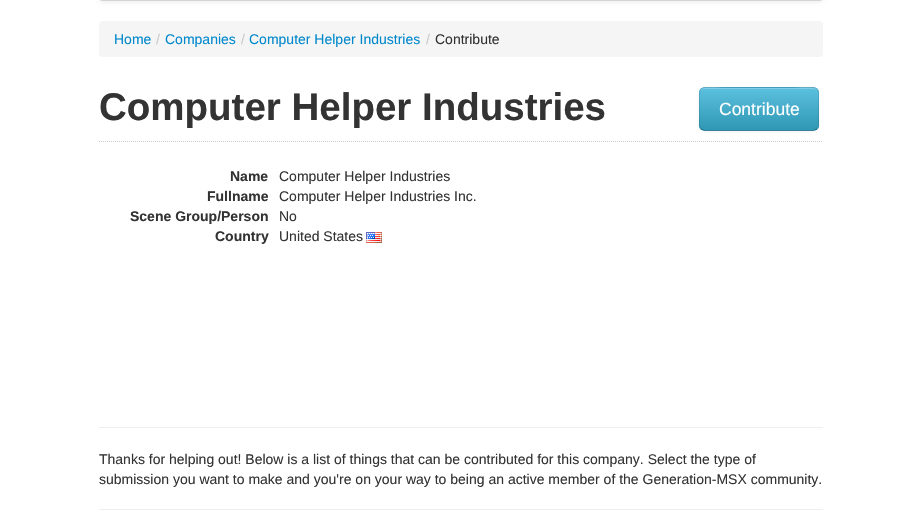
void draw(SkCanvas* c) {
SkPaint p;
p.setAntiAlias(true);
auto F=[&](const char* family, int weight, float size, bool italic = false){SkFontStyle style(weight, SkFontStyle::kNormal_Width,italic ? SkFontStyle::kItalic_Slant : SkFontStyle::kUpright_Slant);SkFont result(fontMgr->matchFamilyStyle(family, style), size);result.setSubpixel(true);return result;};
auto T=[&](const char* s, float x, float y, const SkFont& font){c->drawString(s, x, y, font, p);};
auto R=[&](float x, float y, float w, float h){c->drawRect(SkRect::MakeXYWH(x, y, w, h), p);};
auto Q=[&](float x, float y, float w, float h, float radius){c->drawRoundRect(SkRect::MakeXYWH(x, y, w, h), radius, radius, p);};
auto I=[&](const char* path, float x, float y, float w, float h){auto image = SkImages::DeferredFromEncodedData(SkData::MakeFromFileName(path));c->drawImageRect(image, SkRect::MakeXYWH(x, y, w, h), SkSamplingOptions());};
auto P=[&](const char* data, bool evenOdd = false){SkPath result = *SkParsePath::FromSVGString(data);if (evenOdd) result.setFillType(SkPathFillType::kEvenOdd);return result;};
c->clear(0xffffffff);
p.setColor(0x12000000);
p.setMaskFilter(SkMaskFilter::MakeBlur(kNormal_SkBlurStyle, 2));
c->drawRoundRect(SkRect::MakeXYWH(99,-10,724,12),4,4,p);
p.setMaskFilter(nullptr);
p.setStroke(true);
p.setStrokeWidth(1);
p.setColor(0xffd4d4d4);
c->drawRoundRect(SkRect::MakeXYWH(99.5,-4.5,723,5),3.5,3.5,p);
p.setStroke(false);
p.setColor(0xfff5f5f5);
Q(99,21,724,36,4);
auto f1 = F("Liberation Sans",400,14);
p.setColor(0xff0088cc);
T("Home",114,44,f1);
p.setColor(0xffcccccc);
T("/",156,44,f1);
p.setColor(0xff0088cc);
T("Companies",165,44,f1);
p.setColor(0xffcccccc);
T("/",241,44,f1);
p.setColor(0xff0088cc);
T("Computer Helper Industries",249,44,f1);
p.setColor(0xffcccccc);
T("/",426,44,f1);
p.setColor(0xff333333);
T("Contribute",435,44,f1);
auto f2 = F("Liberation Sans",700,38.5);
T("Computer Helper Industries",99,120,f2);
p.setColor(0x0d000000);
p.setMaskFilter(SkMaskFilter::MakeBlur(kNormal_SkBlurStyle, 1));
c->drawRoundRect(SkRect::MakeXYWH(699,88,120,44),6,6,p);
p.setMaskFilter(nullptr);
p.setColor(0xff49afcd);
Q(699,87,120,44,6);
c->save();
c->clipPath(P("M705 87h108c3.5 0 6 2.5 6 6v32c0 3.5-2.5 6-6 6h-108c-3.5 0-6-2.5-6-6v-32c0-3.5 2.5-6 6-6z"),true);
{
const SkColor colors[] = {0xff5bc0de,0xff2f96b4};
const float stops[] = {0,1};
const SkPoint ends[] = {{759,88}, {759,130}};
p.setShader(SkGradientShader::MakeLinear(ends, colors, stops, 2, SkTileMode::kClamp));
p.setAlpha(255);
}
R(699,88,120,42);
c->restore();
p.setShader(nullptr);
p.setColor(0x33ffffff);
c->drawPath(P("M705 89h108c3 0 5 2 5 5c0-11-18-6-23-6h-72c-5 0-23-5-23 6c0-3 2-5 5-5z"),p);
p.setStroke(true);
p.setColor(0x40000000);
c->drawPath(P("M817 129l-3.5 1.5h-109l-3.5-1.5"),p);
p.setColor(0x1a000000);
c->drawPath(P("M701 129c-2.5-2.5-1.5-6.5-1.5-9.5v-10.5c0-25-3-21.5 23.5-21.5h72c26.5 0 23.5-3.5 23.5 21.5v10.5c0 3 1 7-1.5 9.5"),p);
auto f3 = F("Liberation Sans",400,17.5);
p.setStroke(false);
p.setColor(0xffffffff);
T("Contribute",719,115,f3);
p.setStroke(true);
p.setColor(0xffcccccc);
p.setPathEffect(SkDashPathEffect::Make({{1,1}}, 0));
c->drawPath(P("M99 141.5h724"),p);
p.setPathEffect(nullptr);
auto f4 = F("Liberation Sans",700,14);
p.setStroke(false);
p.setColor(0xff333333);
T("Name",230,181,f4);
T("Computer Helper Industries",279,181,f1);
T("Fullname",207,201,f4);
T("Computer Helper Industries Inc.",279,201,f1);
T("Scene Group/Person",130,221,f4);
T("No",279,221,f1);
T("Country",215,241,f4);
T("United States",279,241,f1);
I("1.png",366,232,16,11);
p.setColor(0xffeeeeee);
R(99,427,724,1);
p.setColor(0xff333333);
T("Thanks for helping out! Below is a list of things that can be contributed for this company. Select the type of",99,464,f1);
T("submission you want to make and you're on your way to being an active member of the Generation-MSX community.",99,484,f1);
p.setColor(0xffeeeeee);
R(99,509,724,1);
}
